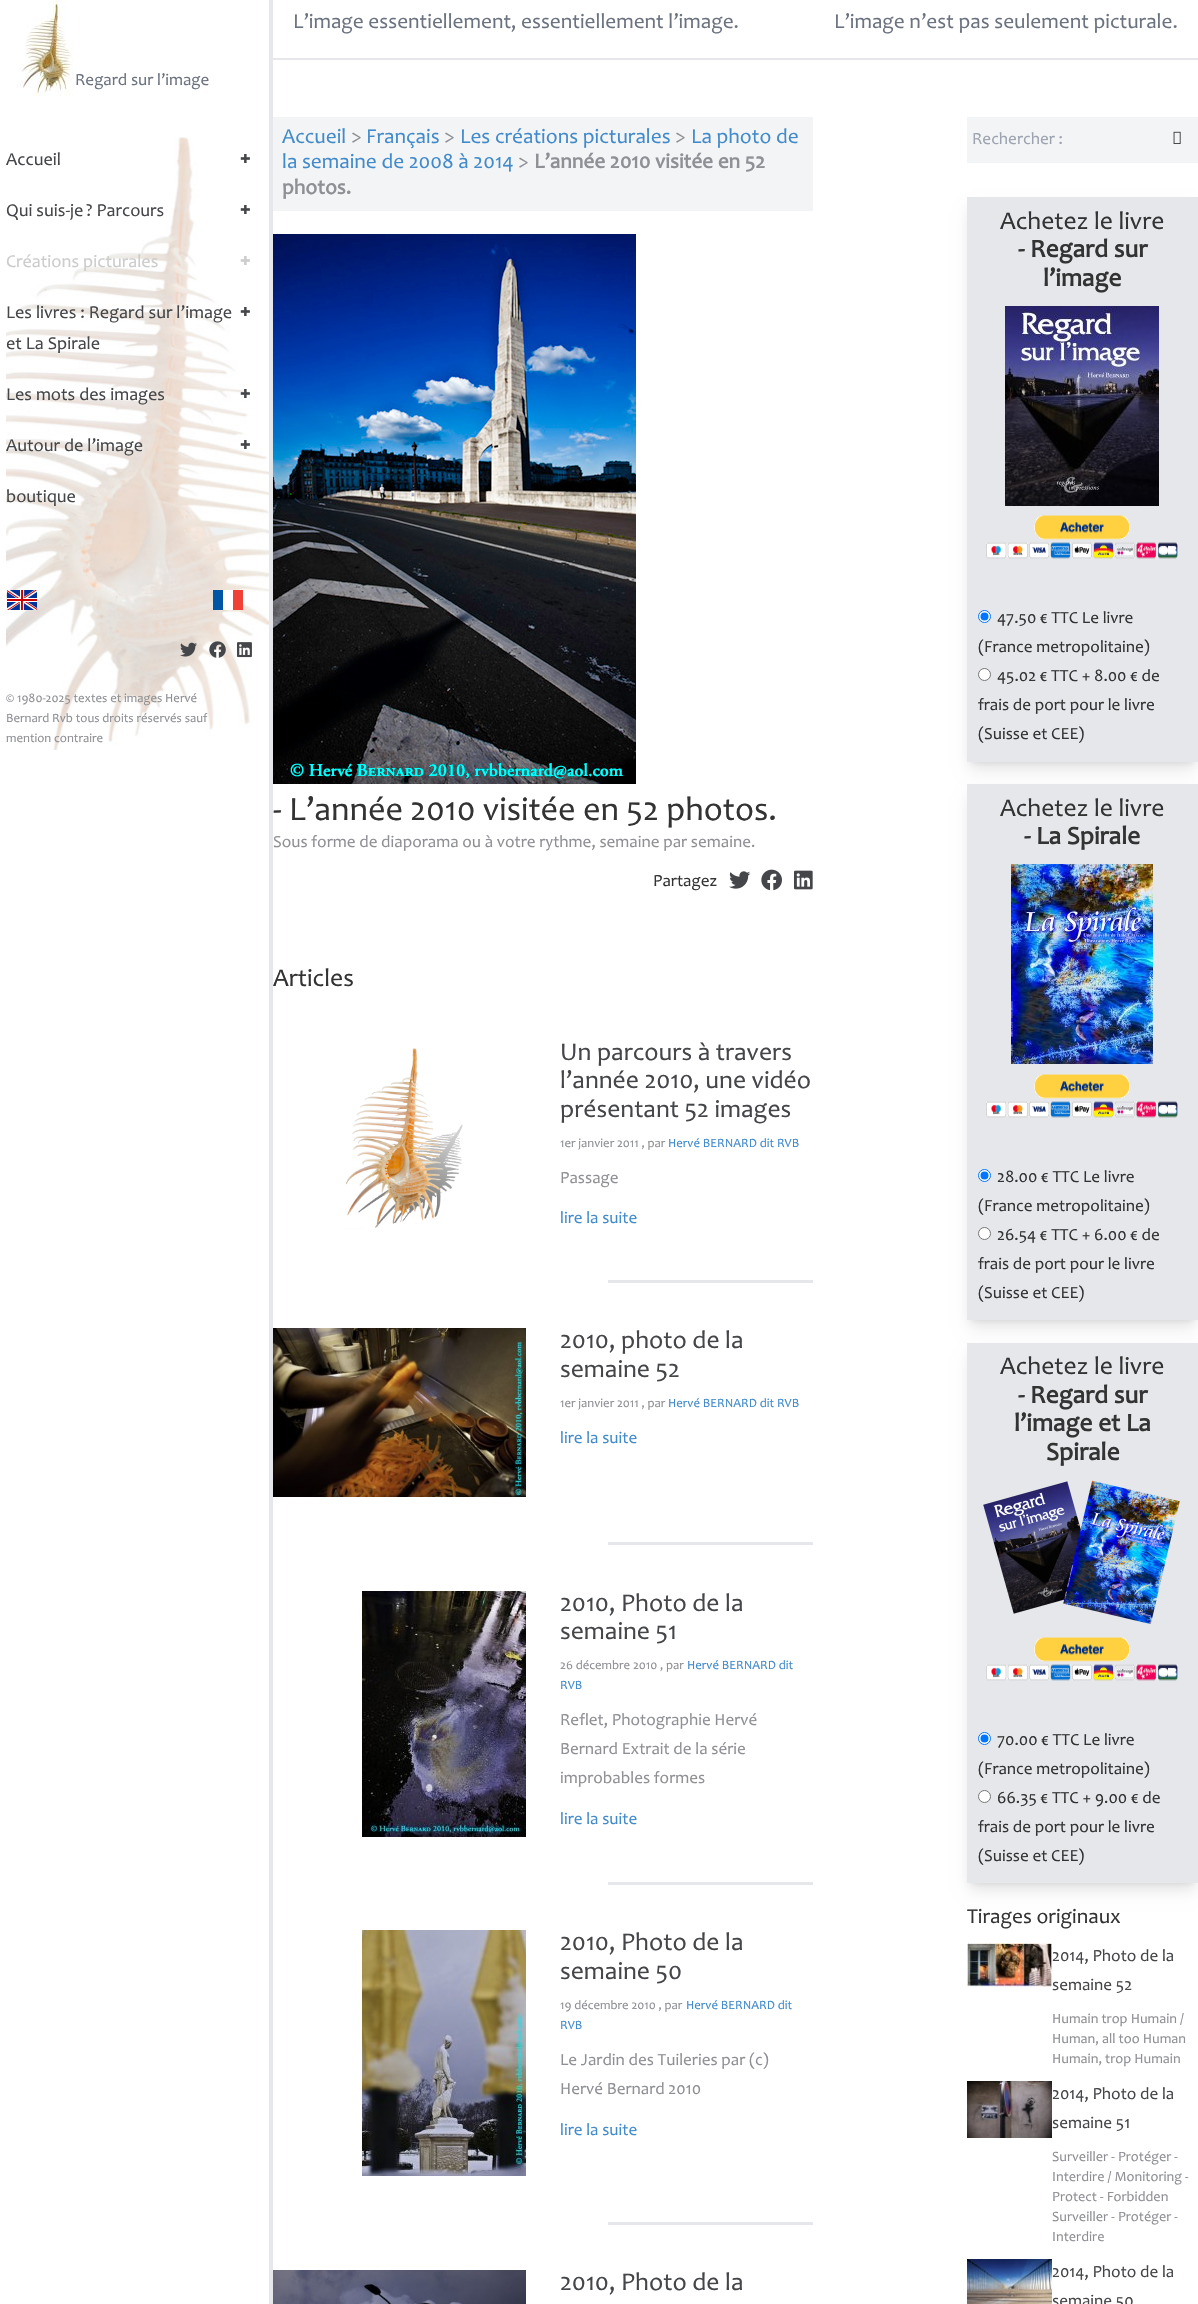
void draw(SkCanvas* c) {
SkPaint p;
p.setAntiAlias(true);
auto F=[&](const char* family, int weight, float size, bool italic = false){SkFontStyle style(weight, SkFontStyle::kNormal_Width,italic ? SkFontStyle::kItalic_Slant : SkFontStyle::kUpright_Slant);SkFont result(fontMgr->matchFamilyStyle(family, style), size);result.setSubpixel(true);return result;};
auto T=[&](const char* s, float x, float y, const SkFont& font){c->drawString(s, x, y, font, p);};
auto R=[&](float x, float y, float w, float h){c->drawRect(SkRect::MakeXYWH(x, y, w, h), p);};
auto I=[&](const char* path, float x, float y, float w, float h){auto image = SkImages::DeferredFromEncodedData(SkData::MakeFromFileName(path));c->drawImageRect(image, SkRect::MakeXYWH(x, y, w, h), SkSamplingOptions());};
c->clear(0xffffffff);
p.setColor(0xffe5e7eb);
R(269,0,4,2304);
I("1.png",17,0,56,96);
auto f1 = F("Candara",400,17.1);
p.setColor(0xff6b7280);
T("Regard sur l’image",75,85,f1);
I("2.png",6,137,263,613);
auto f2 = F("Candara",400,18.25);
p.setColor(0xff444649);
T("Accueil",6,165,f2);
auto f3 = F("Noto Sans",900,18.25);
T("+",240,165,f3);
T("Qui suis-je",6,216,f2);
T("? Parcours",86,216,f2);
T("+",240,216,f3);
p.setColor(0xffcccccc);
T("Créations picturales",6,267,f2);
T("+",240,267,f3);
p.setColor(0xff444649);
T("Les livres : Regard sur l’image",6,318,f2);
T("et La Spirale",6,349,f2);
T("+",240,318,f3);
T("Les mots des images",6,400,f2);
T("+",240,400,f3);
T("Autour de l’image",6,451,f2);
T("+",240,451,f3);
T("boutique",6,502,f2);
I("3.png",7,590,30,20);
I("4.png",213,590,30,20);
I("5.png",180,642,17,15);
I("6.png",209,641,17,17);
I("7.png",237,642,15,16);
auto f4 = F("Candara",400,12.75);
p.setColor(0xff8e9095);
T("© 1980-2025 textes et images Hervé",6,702,f4);
T("Bernard Rvb tous droits réservés sauf",6,722,f4);
T("mention contraire",6,742,f4);
p.setColor(0xffe5e7eb);
R(273,58,925,2);
auto f5 = F("Candara",400,21.3);
p.setColor(0xff6b7280);
T("L’image essentiellement, essentiellement l’image.",293,28,f5);
T("L’image n’est pas seulement picturale.",834,28,f5);
p.setColor(0xfff3f4f6);
R(273,117,540,94);
p.setColor(0xff428bca);
T("Accueil",282,143,f5);
p.setColor(0xff8e9095);
T(">",351,143,f5);
p.setColor(0xff428bca);
T("Français",366,143,f5);
p.setColor(0xff8e9095);
T(">",444,143,f5);
p.setColor(0xff428bca);
T("Les créations picturales",460,143,f5);
p.setColor(0xff8e9095);
T(">",675,143,f5);
p.setColor(0xff428bca);
T("La photo de",691,143,f5);
T("la semaine de 2008 à 2014",282,168,f5);
p.setColor(0xff8e9095);
T(">",518,168,f5);
auto f6 = F("Candara",700,21.3);
T("L’année 2010 visitée en 52",534,168,f6);
T("photos.",282,194,f6);
I("8.png",273,234,363,550);
auto f7 = F("Candara",400,34.1);
p.setColor(0xff333333);
T("- L’année 2010 visitée en 52 photos.",273,820,f7);
p.setColor(0xff8e9095);
T("Sous forme de diaporama ou à votre rythme, semaine par semaine.",273,847,f1);
p.setColor(0xff333333);
T("Partagez",653,886,f1);
I("9.png",729,871,22,18);
I("10.png",761,869,21,22);
I("11.png",794,870,19,20);
auto f8 = F("Candara",400,25.6);
T("Articles",273,986,f8);
I("12.png",345,1048,118,181);
p.setColor(0xff444649);
T("Un parcours à travers",560,1060,f8);
T("l’année 2010, une vidéo",560,1088,f8);
T("présentant 52 images",560,1117,f8);
p.setColor(0xff8e9095);
T("1er janvier 2011 , par",560,1147,f4);
p.setColor(0xff428bca);
T("Hervé BERNARD dit RVB",668,1147,f4);
p.setColor(0xff8e9095);
T("Passage",560,1183,f1);
p.setColor(0xff428bca);
T("lire la suite",560,1223,f1);
p.setColor(0xffe5e7eb);
R(608,1280,205,3);
I("13.png",273,1328,253,169);
p.setColor(0xff444649);
T("2010, photo de la",560,1348,f8);
T("semaine 52",560,1377,f8);
p.setColor(0xff8e9095);
T("1er janvier 2011 , par",560,1407,f4);
p.setColor(0xff428bca);
T("Hervé BERNARD dit RVB",668,1407,f4);
T("lire la suite",560,1443,f1);
p.setColor(0xffe5e7eb);
R(608,1542,205,3);
I("14.png",362,1591,164,246);
p.setColor(0xff444649);
T("2010, Photo de la",560,1611,f8);
T("semaine 51",560,1639,f8);
p.setColor(0xff8e9095);
T("26 décembre 2010 , par",560,1669,f4);
p.setColor(0xff428bca);
T("Hervé BERNARD dit",687,1669,f4);
T("RVB",560,1689,f4);
p.setColor(0xff8e9095);
T("Reflet, Photographie Hervé",560,1725,f1);
T("Bernard Extrait de la série",560,1754,f1);
T("improbables formes",560,1783,f1);
p.setColor(0xff428bca);
T("lire la suite",560,1824,f1);
p.setColor(0xffe5e7eb);
R(608,1882,205,3);
I("15.png",362,1930,164,246);
p.setColor(0xff444649);
T("2010, Photo de la",560,1950,f8);
T("semaine 50",560,1979,f8);
p.setColor(0xff8e9095);
T("19 décembre 2010 , par",560,2009,f4);
p.setColor(0xff428bca);
T("Hervé BERNARD dit",686,2009,f4);
T("RVB",560,2029,f4);
p.setColor(0xff8e9095);
T("Le Jardin des Tuileries par (c)",560,2065,f1);
T("Hervé Bernard 2010",560,2094,f1);
p.setColor(0xff428bca);
T("lire la suite",560,2135,f1);
p.setColor(0xffe5e7eb);
R(608,2222,205,3);
I("16.png",273,2270,253,34);
p.setColor(0xff444649);
T("2010, Photo de la",560,2290,f8);
p.setColor(0xfff3f4f6);
R(967,117,231,46);
p.setColor(0xff9ca3af);
T("Rechercher :",972,144,f1);
I("17.png",1173,131,8,13);
p.setColor(0x1a000000);
p.setMaskFilter(SkMaskFilter::MakeBlur(kNormal_SkBlurStyle, 3));
c->drawRect(SkRect::MakeXYWH(971,205,223,557),p);
p.setMaskFilter(nullptr);
p.setMaskFilter(SkMaskFilter::MakeBlur(kNormal_SkBlurStyle, 7.5));
c->drawRect(SkRect::MakeXYWH(970,210,225,559),p);
p.setMaskFilter(nullptr);
p.setColor(0xffe5e7eb);
R(967,197,231,565);
p.setColor(0xff333333);
T("Achetez le livre",1000,229,f8);
auto f9 = F("Candara",700,25.6);
T("- Regard sur",1018,257,f9);
T("l’image",1043,286,f9);
I("18.png",1005,306,154,200);
I("19.png",986,515,192,44);
p.setColor(0xffffffff);
c->drawCircle(984.5,616.5,6,p);
p.setStroke(true);
p.setStrokeWidth(1);
p.setColor(0xff0075ff);
c->drawCircle(984.5,616.5,6,p);
p.setStroke(false);
c->drawCircle(984.5,616.5,4,p);
p.setColor(0xff333333);
T("47.50 € TTC Le livre",997,623,f1);
T("(France metropolitaine)",978,652,f1);
p.setColor(0xffffffff);
c->drawCircle(984.5,674.5,6,p);
p.setStroke(true);
p.setColor(0xff767676);
c->drawCircle(984.5,674.5,6,p);
p.setStroke(false);
p.setColor(0xff333333);
T("45.02 € TTC + 8.00 € de",997,681,f1);
T("frais de port pour le livre",978,710,f1);
T("(Suisse et CEE)",978,739,f1);
p.setColor(0x1a000000);
p.setMaskFilter(SkMaskFilter::MakeBlur(kNormal_SkBlurStyle, 3));
c->drawRect(SkRect::MakeXYWH(971,792,223,528),p);
p.setMaskFilter(nullptr);
p.setMaskFilter(SkMaskFilter::MakeBlur(kNormal_SkBlurStyle, 7.5));
c->drawRect(SkRect::MakeXYWH(970,797,225,530),p);
p.setMaskFilter(nullptr);
p.setColor(0xffe5e7eb);
R(967,784,231,536);
p.setColor(0xff333333);
T("Achetez le livre",1000,816,f8);
T("- La Spirale",1024,844,f9);
I("20.png",1011,864,142,200);
I("19.png",986,1074,192,44);
p.setColor(0xffffffff);
c->drawCircle(984.5,1175.5,6,p);
p.setStroke(true);
p.setColor(0xff0075ff);
c->drawCircle(984.5,1175.5,6,p);
p.setStroke(false);
c->drawCircle(984.5,1175.5,4,p);
p.setColor(0xff333333);
T("28.00 € TTC Le livre",997,1182,f1);
T("(France metropolitaine)",978,1211,f1);
p.setColor(0xffffffff);
c->drawCircle(984.5,1233.5,6,p);
p.setStroke(true);
p.setColor(0xff767676);
c->drawCircle(984.5,1233.5,6,p);
p.setStroke(false);
p.setColor(0xff333333);
T("26.54 € TTC + 6.00 € de",997,1240,f1);
T("frais de port pour le livre",978,1269,f1);
T("(Suisse et CEE)",978,1298,f1);
p.setColor(0x1a000000);
p.setMaskFilter(SkMaskFilter::MakeBlur(kNormal_SkBlurStyle, 3));
c->drawRect(SkRect::MakeXYWH(971,1351,223,532),p);
p.setMaskFilter(nullptr);
p.setMaskFilter(SkMaskFilter::MakeBlur(kNormal_SkBlurStyle, 7.5));
c->drawRect(SkRect::MakeXYWH(970,1356,225,534),p);
p.setMaskFilter(nullptr);
p.setColor(0xffe5e7eb);
R(967,1343,231,540);
p.setColor(0xff333333);
T("Achetez le livre",1000,1374,f8);
T("- Regard sur",1018,1403,f9);
T("l’image et La",1014,1431,f9);
T("Spirale",1046,1460,f9);
I("21.png",983,1480,197,144);
I("19.png",986,1637,192,44);
p.setColor(0xffffffff);
c->drawCircle(984.5,1738.5,6,p);
p.setStroke(true);
p.setColor(0xff0075ff);
c->drawCircle(984.5,1738.5,6,p);
p.setStroke(false);
c->drawCircle(984.5,1738.5,4,p);
p.setColor(0xff333333);
T("70.00 € TTC Le livre",997,1745,f1);
T("(France metropolitaine)",978,1774,f1);
p.setColor(0xffffffff);
c->drawCircle(984.5,1796.5,6,p);
p.setStroke(true);
p.setColor(0xff767676);
c->drawCircle(984.5,1796.5,6,p);
p.setStroke(false);
p.setColor(0xff333333);
T("66.35 € TTC + 9.00 € de",997,1803,f1);
T("frais de port pour le livre",978,1832,f1);
T("(Suisse et CEE)",978,1861,f1);
T("Tirages originaux",967,1923,f5);
I("22.png",967,1943,85,44);
p.setColor(0xff444649);
T("2014, Photo de la",1052,1961,f1);
T("semaine 52",1052,1990,f1);
auto f10 = F("Candara",400,14.25);
p.setColor(0xff8e9095);
T("Humain trop Humain /",1052,2023,f10);
T("Human, all too Human",1052,2043,f10);
T("Humain, trop Humain",1052,2063,f10);
I("23.png",967,2081,85,57);
p.setColor(0xff444649);
T("2014, Photo de la",1052,2099,f1);
T("semaine 51",1052,2128,f1);
p.setColor(0xff8e9095);
T("Surveiller - Protéger -",1052,2161,f10);
T("Interdire / Monitoring -",1052,2181,f10);
T("Protect - Forbidden",1052,2201,f10);
T("Surveiller - Protéger -",1052,2221,f10);
T("Interdire",1052,2241,f10);
I("24.png",967,2259,85,45);
p.setColor(0xff444649);
T("2014, Photo de la",1052,2277,f1);
T("semaine 50",1052,2306,f1);
}
